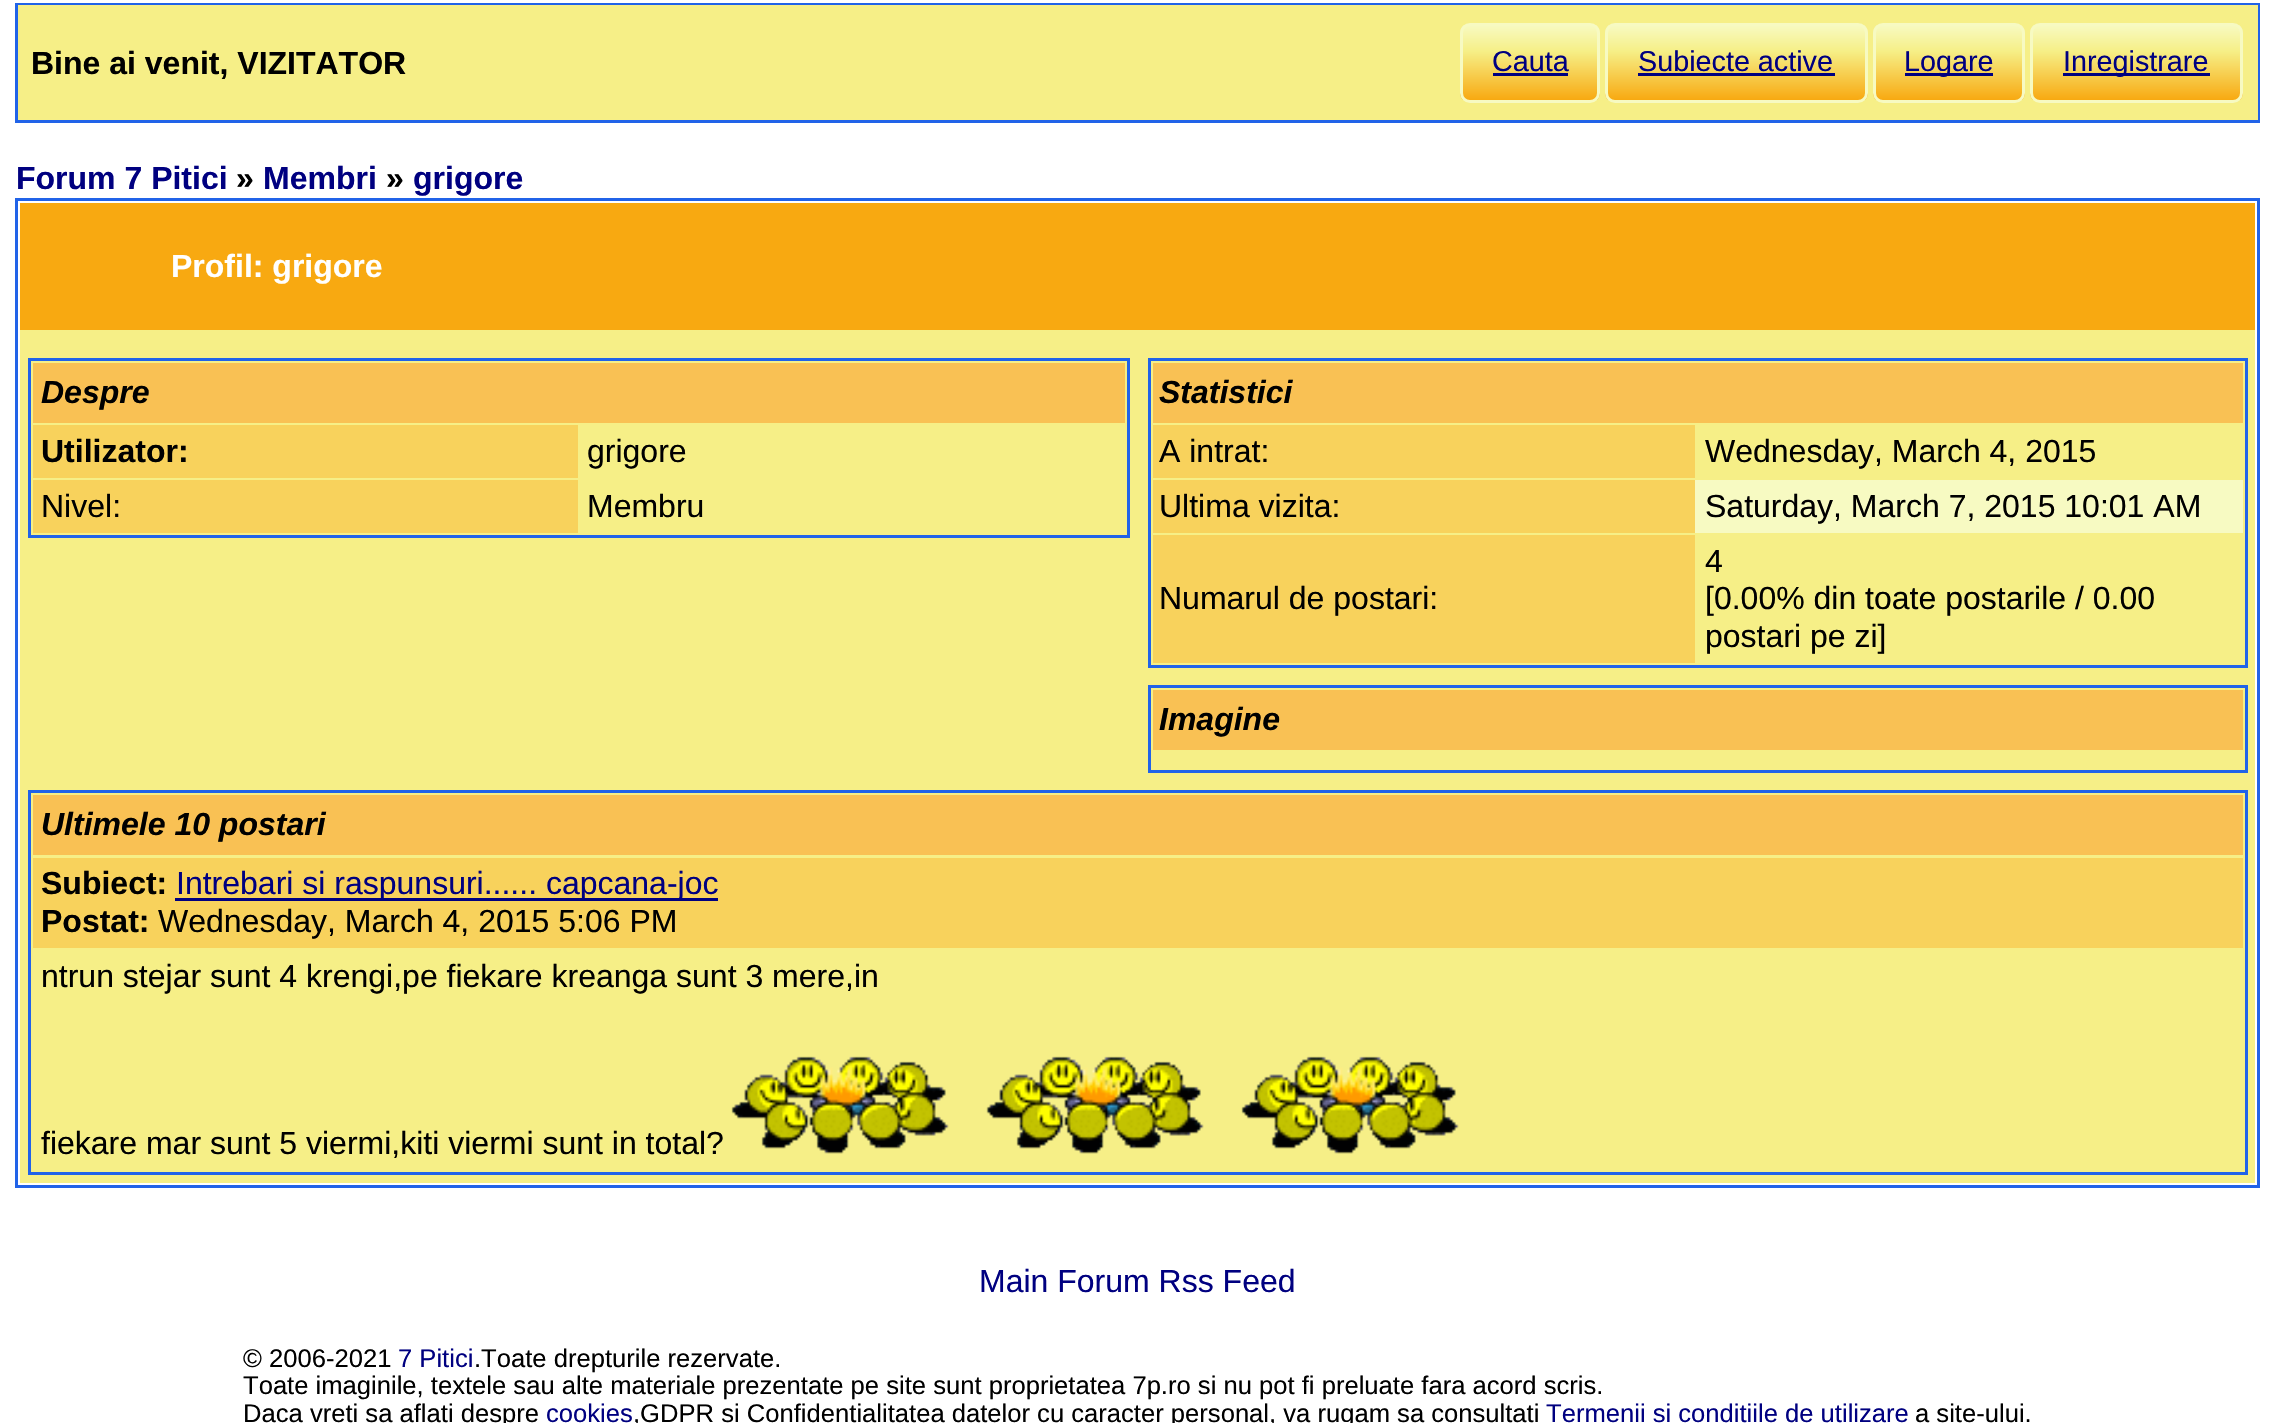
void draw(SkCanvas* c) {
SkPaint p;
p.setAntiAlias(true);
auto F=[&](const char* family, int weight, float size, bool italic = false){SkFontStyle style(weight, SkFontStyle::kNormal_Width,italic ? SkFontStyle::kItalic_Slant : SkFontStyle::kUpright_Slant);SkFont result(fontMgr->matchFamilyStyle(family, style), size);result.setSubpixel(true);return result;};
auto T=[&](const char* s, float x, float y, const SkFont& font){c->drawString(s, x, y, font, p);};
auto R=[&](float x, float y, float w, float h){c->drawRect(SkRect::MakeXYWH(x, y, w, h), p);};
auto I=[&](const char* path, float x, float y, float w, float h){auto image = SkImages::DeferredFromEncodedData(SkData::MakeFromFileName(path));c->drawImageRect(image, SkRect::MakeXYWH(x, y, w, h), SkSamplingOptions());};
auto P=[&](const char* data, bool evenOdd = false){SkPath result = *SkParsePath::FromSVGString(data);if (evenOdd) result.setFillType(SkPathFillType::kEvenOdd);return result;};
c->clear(0xffffffff);
p.setStroke(true);
p.setStrokeWidth(3);
p.setColor(0xff2163e8);
c->drawRect(SkRect::MakeXYWH(16.5,4.5,2242,117),p);
p.setStroke(false);
p.setColor(0xfff6ef87);
R(18,5,2240,115);
auto f1 = F("Liberation Sans",700,32);
p.setColor(0xff000000);
T("Bine ai venit, VIZITATOR",31,74,f1);
c->save();
c->clipPath(P("M1470 23h120c5.5 0 10 4.5 10 10v60c0 5.5-4.5 10-10 10h-120c-5.5 0-10-4.5-10-10v-60c0-5.5 4.5-10 10-10z"),true);
{
const SkColor colors[] = {0xfff7fac2,0xfff6ef87,0xfff8a911};
const float stops[] = {0,.35,1};
const SkPoint ends[] = {{1530,25}, {1530,100}};
p.setShader(SkGradientShader::MakeLinear(ends, colors, stops, 3, SkTileMode::kClamp));
p.setAlpha(255);
}
R(1460,25,140,75);
c->restore();
p.setStroke(true);
p.setShader(nullptr);
p.setColor(0xfff7fac2);
c->drawRoundRect(SkRect::MakeXYWH(1461.5,24.5,137,77),8.5,8.5,p);
auto f2 = F("Liberation Sans",400,28.75);
p.setStroke(false);
p.setColor(0xff000080);
T("Cauta",1492,71,f2);
R(1493,73,75,3);
c->save();
c->clipPath(P("M1615 23h243c5.5 0 10 4.5 10 10v60c0 5.5-4.5 10-10 10h-243c-5.5 0-10-4.5-10-10v-60c0-5.5 4.5-10 10-10z"),true);
{
const SkColor colors[] = {0xfff7fac2,0xfff6ef87,0xfff8a911};
const float stops[] = {0,.35,1};
const SkPoint ends[] = {{1736,25}, {1736,100}};
p.setShader(SkGradientShader::MakeLinear(ends, colors, stops, 3, SkTileMode::kClamp));
p.setAlpha(255);
}
R(1605,25,263,75);
c->restore();
p.setStroke(true);
p.setShader(nullptr);
p.setColor(0xfff7fac2);
c->drawRoundRect(SkRect::MakeXYWH(1606.5,24.5,260,77),8.5,8.5,p);
p.setStroke(false);
p.setColor(0xff000080);
T("Subiecte active",1638,71,f2);
R(1638,73,197,3);
c->save();
c->clipPath(P("M1883 23h132c5.5 0 10 4.5 10 10v60c0 5.5-4.5 10-10 10h-132c-5.5 0-10-4.5-10-10v-60c0-5.5 4.5-10 10-10z"),true);
{
const SkColor colors[] = {0xfff7fac2,0xfff6ef87,0xfff8a911};
const float stops[] = {0,.35,1};
const SkPoint ends[] = {{1949,25}, {1949,100}};
p.setShader(SkGradientShader::MakeLinear(ends, colors, stops, 3, SkTileMode::kClamp));
p.setAlpha(255);
}
R(1873,25,152,75);
c->restore();
p.setStroke(true);
p.setShader(nullptr);
p.setColor(0xfff7fac2);
c->drawRoundRect(SkRect::MakeXYWH(1874.5,24.5,149,77),8.5,8.5,p);
p.setStroke(false);
p.setColor(0xff000080);
R(1905,73,88,3);
T("Logare",1904,71,f2);
c->save();
c->clipPath(P("M2040 23h193c5.5 0 10 4.5 10 10v60c0 5.5-4.5 10-10 10h-193c-5.5 0-10-4.5-10-10v-60c0-5.5 4.5-10 10-10z"),true);
{
const SkColor colors[] = {0xfff7fac2,0xfff6ef87,0xfff8a911};
const float stops[] = {0,.35,1};
const SkPoint ends[] = {{2136,25}, {2136,100}};
p.setShader(SkGradientShader::MakeLinear(ends, colors, stops, 3, SkTileMode::kClamp));
p.setAlpha(255);
}
R(2030,25,213,75);
c->restore();
p.setStroke(true);
p.setShader(nullptr);
p.setColor(0xfff7fac2);
c->drawRoundRect(SkRect::MakeXYWH(2031.5,24.5,210,77),8.5,8.5,p);
p.setStroke(false);
p.setColor(0xff000080);
R(2063,73,147,3);
T("Inregistrare",2063,71,f2);
T("Forum 7 Pitici",16,189,f1);
p.setColor(0xff000000);
T("»",236,189,f1);
p.setColor(0xff000080);
T("Membri",263,189,f1);
p.setColor(0xff000000);
T("»",386,189,f1);
p.setColor(0xff000080);
T("grigore",413,189,f1);
p.setStroke(true);
p.setColor(0xff2163e8);
c->drawRect(SkRect::MakeXYWH(16.5,199.5,2242,987),p);
p.setStroke(false);
p.setColor(0xfff6ef87);
R(20,330,2235,853);
p.setColor(0xfff8a911);
R(20,203,2235,127);
p.setColor(0xffffffff);
T("Profil: grigore",171,277,f1);
p.setStroke(true);
p.setColor(0xff2163e8);
c->drawRect(SkRect::MakeXYWH(29.5,359.5,1099,177),p);
p.setStroke(false);
p.setColor(0xfff9c154);
R(33,363,1092,60);
auto f3 = F("Liberation Sans",700,32,true);
p.setColor(0xff000000);
T("Despre",41,403,f3);
p.setColor(0xfff8d25c);
R(33,425,545,53);
p.setColor(0xff000000);
T("Utilizator:",41,462,f1);
auto f4 = F("Liberation Sans",400,32);
T("grigore",587,462,f4);
p.setColor(0xfff8d25c);
R(33,480,545,53);
p.setColor(0xff000000);
T("Nivel:",41,517,f4);
T("Membru",587,517,f4);
p.setStroke(true);
p.setColor(0xff2163e8);
c->drawRect(SkRect::MakeXYWH(1149.5,359.5,1097,307),p);
p.setStroke(false);
p.setColor(0xfff9c154);
R(1153,363,1090,60);
p.setColor(0xff000000);
T("Statistici",1159,403,f3);
p.setColor(0xfff8d25c);
R(1153,425,542,53);
p.setColor(0xff000000);
T("A intrat:",1159,462,f4);
T("Wednesday, March 4, 2015",1705,462,f4);
p.setColor(0xfff7fac2);
R(1695,480,548,53);
p.setColor(0xfff8d25c);
R(1153,480,542,53);
p.setColor(0xff000000);
T("Ultima vizita:",1159,517,f4);
T("Saturday, March 7, 2015 10:01 AM",1705,517,f4);
p.setColor(0xfff8d25c);
R(1153,535,542,128);
p.setColor(0xff000000);
T("Numarul de postari:",1159,609,f4);
T("4",1705,572,f4);
T("[0.00% din toate postarile / 0.00",1705,609,f4);
T("postari pe zi]",1705,647,f4);
p.setStroke(true);
p.setColor(0xff2163e8);
c->drawRect(SkRect::MakeXYWH(1149.5,686.5,1097,85),p);
p.setStroke(false);
p.setColor(0xfff9c154);
R(1153,690,1090,60);
p.setColor(0xff000000);
T("Imagine",1159,730,f3);
p.setStroke(true);
p.setColor(0xff2163e8);
c->drawRect(SkRect::MakeXYWH(29.5,791.5,2217,382),p);
p.setStroke(false);
p.setColor(0xfff9c154);
R(33,795,2210,60);
p.setColor(0xff000000);
T("Ultimele 10 postari",41,835,f3);
p.setColor(0xfff8d25c);
R(33,858,2210,90);
p.setColor(0xff000000);
T("Subiect:",41,894,f1);
p.setColor(0xff000080);
R(175,898,543,3);
T("Intrebari si raspunsuri...... capcana-joc",176,894,f4);
p.setColor(0xff000000);
T("Postat:",41,932,f1);
T("Wednesday, March 4, 2015 5:06 PM",158,932,f4);
T("ntrun stejar sunt 4 krengi,pe fiekare kreanga sunt 3 mere,in",41,987,f4);
T("fiekare mar sunt 5 viermi,kiti viermi sunt in total?",41,1154,f4);
I("1.png",731,1056,218,98);
I("2.png",986,1056,218,98);
I("3.png",1241,1056,218,98);
p.setColor(0xff000080);
T("Main Forum Rss Feed",979,1292,f4);
auto f5 = F("Liberation Sans",400,25.6);
p.setColor(0xff000000);
T("© 2006-2021",243,1367,f5);
p.setColor(0xff000080);
T("7 Pitici",398,1367,f5);
p.setColor(0xff000000);
T(".Toate drepturile rezervate.",474,1367,f5);
T("Toate imaginile, textele sau alte materiale prezentate pe site sunt proprietatea 7p.ro si nu pot fi preluate fara acord scris.",243,1394,f5);
T("Daca vreti sa aflati despre",243,1422,f5);
p.setColor(0xff000080);
T("cookies",546,1422,f5);
p.setColor(0xff000000);
T(",GDPR si Confidentialitatea datelor cu caracter personal, va rugam sa consultati",633,1422,f5);
p.setColor(0xff000080);
T("Termenii si conditiile de utilizare",1546,1422,f5);
p.setColor(0xff000000);
T("a site-ului.",1915,1422,f5);
}
